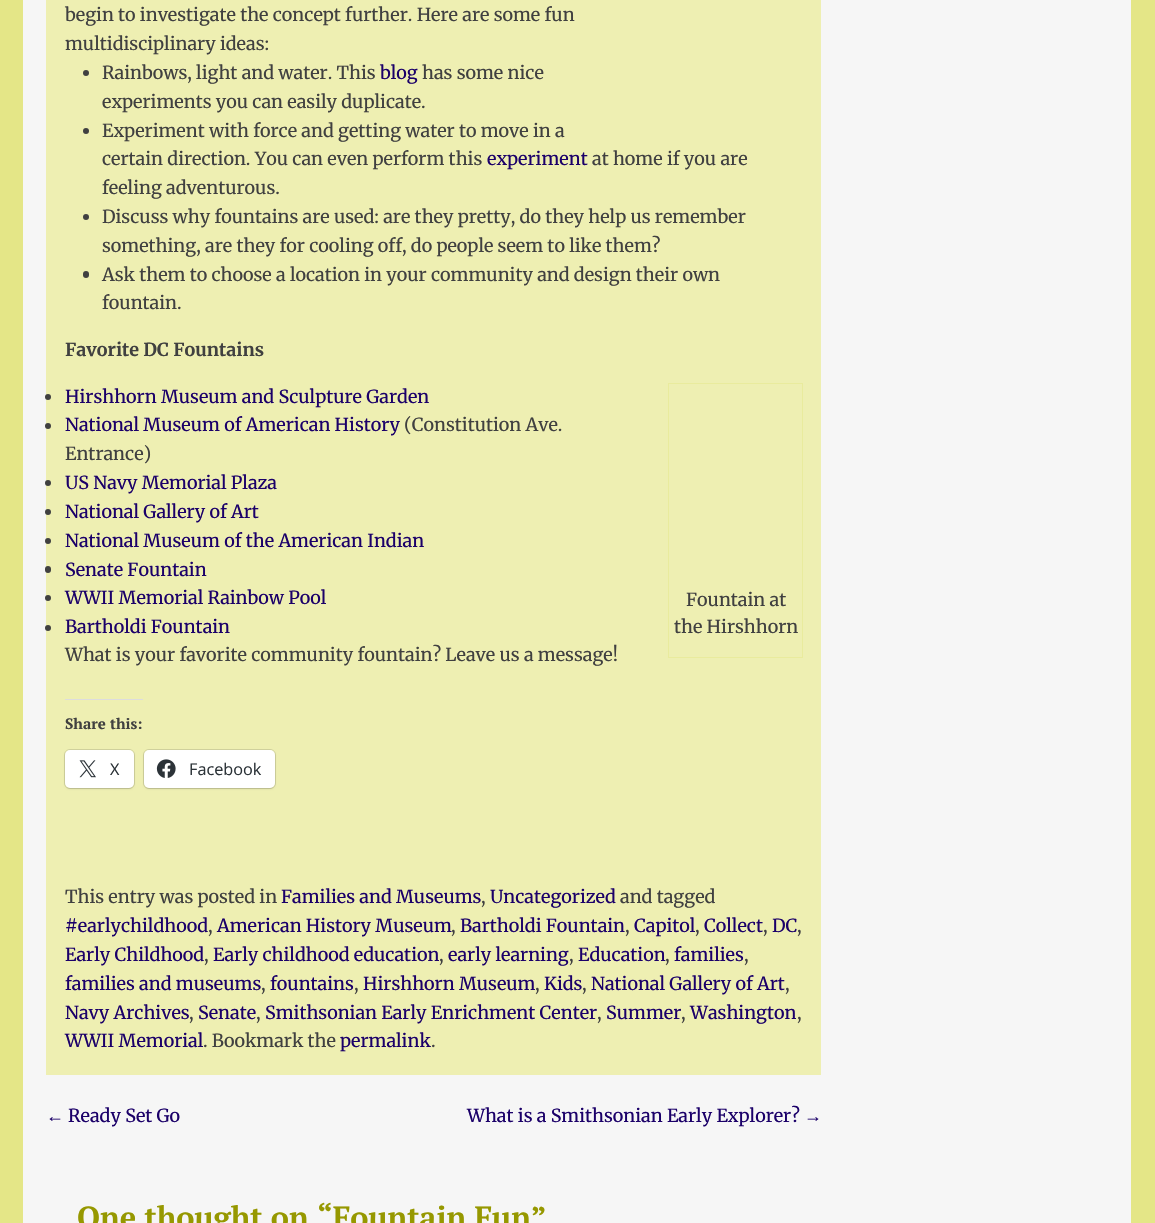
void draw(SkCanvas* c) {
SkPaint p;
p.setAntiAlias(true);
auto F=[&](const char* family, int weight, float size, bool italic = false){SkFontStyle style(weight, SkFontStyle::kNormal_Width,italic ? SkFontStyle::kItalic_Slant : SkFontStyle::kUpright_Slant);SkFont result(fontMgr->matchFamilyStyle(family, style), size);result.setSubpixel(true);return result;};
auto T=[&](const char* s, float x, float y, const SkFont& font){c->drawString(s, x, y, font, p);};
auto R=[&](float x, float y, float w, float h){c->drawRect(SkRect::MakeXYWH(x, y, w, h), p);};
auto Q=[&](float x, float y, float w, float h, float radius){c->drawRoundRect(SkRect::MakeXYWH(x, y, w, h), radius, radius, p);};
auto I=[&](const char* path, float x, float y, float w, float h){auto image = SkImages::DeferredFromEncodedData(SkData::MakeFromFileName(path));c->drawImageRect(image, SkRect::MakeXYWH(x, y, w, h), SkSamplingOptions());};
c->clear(0xffe4e687);
p.setColor(0xfff6f6f6);
R(23,0,1108,1223);
p.setColor(0xffeeefb2);
R(46,0,775,1075);
auto f1 = F("Merriweather",400,18);
p.setColor(0xff404040);
T("begin to investigate the concept further. Here are some fun",65,21,f1);
T("multidisciplinary ideas:",65,50,f1);
c->drawCircle(86,73,3,p);
T("Rainbows, light and water. This",102,79,f1);
p.setColor(0xff1b0069);
T("blog",380,79,f1);
p.setColor(0xff404040);
T("has some nice",422,79,f1);
T("experiments you can easily duplicate.",102,108,f1);
c->drawCircle(86,131,3,p);
T("Experiment with force and getting water to move in a",102,137,f1);
T("certain direction. You can even perform this",102,165,f1);
p.setColor(0xff1b0069);
T("experiment",487,165,f1);
p.setColor(0xff404040);
T("at home if you are",592,165,f1);
T("feeling adventurous.",102,194,f1);
c->drawCircle(86,217,3,p);
T("Discuss why fountains are used: are they pretty, do they help us remember",102,223,f1);
T("something, are they for cooling off, do people seem to like them?",102,252,f1);
Q(83,271,6,7,3);
T("Ask them to choose a location in your community and design their own",102,281,f1);
T("fountain.",102,309,f1);
auto f2 = F("Merriweather",700,18);
T("Favorite DC Fountains",65,356,f2);
c->drawCircle(48,397,3,p);
p.setColor(0xff1b0069);
T("Hirshhorn Museum and Sculpture Garden",65,403,f1);
p.setColor(0xff404040);
c->drawCircle(48,426,3,p);
p.setColor(0xff1b0069);
T("National Museum of American History",65,431,f1);
p.setColor(0xff404040);
T("(Constitution Ave.",404,431,f1);
T("Entrance)",65,460,f1);
c->drawCircle(48,483,3,p);
p.setColor(0xff1b0069);
T("US Navy Memorial Plaza",65,489,f1);
p.setColor(0xff404040);
c->drawCircle(48,512,3,p);
p.setColor(0xff1b0069);
T("National Gallery of Art",65,518,f1);
p.setColor(0xff404040);
c->drawCircle(48,541,3,p);
p.setColor(0xff1b0069);
T("National Museum of the American Indian",65,547,f1);
p.setColor(0xff404040);
Q(45,566,6,7,3);
p.setColor(0xff1b0069);
T("Senate Fountain",65,576,f1);
p.setColor(0xff404040);
c->drawCircle(48,598,3,p);
p.setColor(0xff1b0069);
T("WWII Memorial Rainbow Pool",65,604,f1);
p.setStroke(true);
p.setStrokeWidth(1);
p.setColor(0xffe9eb9d);
c->drawRect(SkRect::MakeXYWH(668.5,383.5,134,274),p);
p.setStroke(false);
p.setColor(0xff404040);
T("Fountain at",686,606,f1);
T("the Hirshhorn",674,633,f1);
c->drawCircle(48,628,3,p);
p.setColor(0xff1b0069);
T("Bartholdi Fountain",65,633,f1);
p.setColor(0xff404040);
T("What is your favorite community fountain? Leave us a message!",65,661,f1);
p.setColor(0xffdcdcde);
R(65,699,78,1);
auto f3 = F("PT Serif",700,15);
p.setColor(0xff404040);
T("Share this:",65,729,f3);
p.setStroke(true);
p.setColor(0xffd1d29d);
c->drawRoundRect(SkRect::MakeXYWH(64.5,749.5,70,39),5.5,5.5,p);
p.setStroke(false);
p.setColor(0x1f000000);
p.setMaskFilter(SkMaskFilter::MakeBlur(kNormal_SkBlurStyle, 1));
c->drawRoundRect(SkRect::MakeXYWH(65,751,69,38),5,5,p);
p.setMaskFilter(nullptr);
p.setColor(0xffffffff);
Q(65,750,69,38,5);
I("1.png",79,760,17,18);
auto f4 = F("Open Sans",400,16.25);
p.setColor(0xff2c3338);
T("X",110,775,f4);
p.setStroke(true);
p.setColor(0xffd1d29d);
c->drawRoundRect(SkRect::MakeXYWH(143.5,749.5,132,39),5.5,5.5,p);
p.setStroke(false);
p.setColor(0x1f000000);
p.setMaskFilter(SkMaskFilter::MakeBlur(kNormal_SkBlurStyle, 1));
c->drawRoundRect(SkRect::MakeXYWH(144,751,131,38),5,5,p);
p.setMaskFilter(nullptr);
p.setColor(0xffffffff);
Q(144,750,131,38,5);
I("2.png",156,759,20,19);
p.setColor(0xff2c3338);
T("Facebook",189,775,f4);
p.setColor(0xff404040);
T("This entry was posted in",65,903,f1);
p.setColor(0xff1b0069);
T("Families and Museums",281,903,f1);
p.setColor(0xff404040);
T(",",481,903,f1);
p.setColor(0xff1b0069);
T("Uncategorized",490,903,f1);
p.setColor(0xff404040);
T("and tagged",620,903,f1);
p.setColor(0xff1b0069);
T("#earlychildhood",65,932,f1);
p.setColor(0xff404040);
T(",",208,932,f1);
p.setColor(0xff1b0069);
T("American History Museum",217,932,f1);
p.setColor(0xff404040);
T(",",451,932,f1);
p.setColor(0xff1b0069);
T("Bartholdi Fountain",460,932,f1);
p.setColor(0xff404040);
T(",",625,932,f1);
p.setColor(0xff1b0069);
T("Capitol",634,932,f1);
p.setColor(0xff404040);
T(",",695,932,f1);
p.setColor(0xff1b0069);
T("Collect",704,932,f1);
p.setColor(0xff404040);
T(",",763,932,f1);
p.setColor(0xff1b0069);
T("DC",772,932,f1);
p.setColor(0xff404040);
T(",",797,932,f1);
p.setColor(0xff1b0069);
T("Early Childhood",65,961,f1);
p.setColor(0xff404040);
T(",",204,961,f1);
p.setColor(0xff1b0069);
T("Early childhood education",213,961,f1);
p.setColor(0xff404040);
T(",",439,961,f1);
p.setColor(0xff1b0069);
T("early learning",448,961,f1);
p.setColor(0xff404040);
T(",",569,961,f1);
p.setColor(0xff1b0069);
T("Education",578,961,f1);
p.setColor(0xff404040);
T(",",665,961,f1);
p.setColor(0xff1b0069);
T("families",674,961,f1);
p.setColor(0xff404040);
T(",",744,961,f1);
p.setColor(0xff1b0069);
T("families and museums",65,990,f1);
p.setColor(0xff404040);
T(",",261,990,f1);
p.setColor(0xff1b0069);
T("fountains",270,990,f1);
p.setColor(0xff404040);
T(",",354,990,f1);
p.setColor(0xff1b0069);
T("Hirshhorn Museum",363,990,f1);
p.setColor(0xff404040);
T(",",535,990,f1);
p.setColor(0xff1b0069);
T("Kids",544,990,f1);
p.setColor(0xff404040);
T(",",582,990,f1);
p.setColor(0xff1b0069);
T("National Gallery of Art",591,990,f1);
p.setColor(0xff404040);
T(",",785,990,f1);
p.setColor(0xff1b0069);
T("Navy Archives",65,1019,f1);
p.setColor(0xff404040);
T(",",189,1019,f1);
p.setColor(0xff1b0069);
T("Senate",198,1019,f1);
p.setColor(0xff404040);
T(",",256,1019,f1);
p.setColor(0xff1b0069);
T("Smithsonian Early Enrichment Center",265,1019,f1);
p.setColor(0xff404040);
T(",",597,1019,f1);
p.setColor(0xff1b0069);
T("Summer",606,1019,f1);
p.setColor(0xff404040);
T(",",681,1019,f1);
p.setColor(0xff1b0069);
T("Washington",690,1019,f1);
p.setColor(0xff404040);
T(",",797,1019,f1);
p.setColor(0xff1b0069);
T("WWII Memorial",65,1047,f1);
p.setColor(0xff404040);
T(". Bookmark the",203,1047,f1);
p.setColor(0xff1b0069);
T("permalink",340,1047,f1);
p.setColor(0xff404040);
T(".",431,1047,f1);
auto f5 = F("Liberation Serif",400,18);
p.setColor(0xff1b0069);
T("←",46,1122,f5);
T("Ready Set Go",68,1122,f1);
T("What is a Smithsonian Early Explorer?",467,1122,f1);
T("→",804,1122,f5);
auto f6 = F("PT Serif",700,30.6);
p.setColor(0xff969800);
T("One thought on “Fountain Fun”",77,1228,f6);
}
